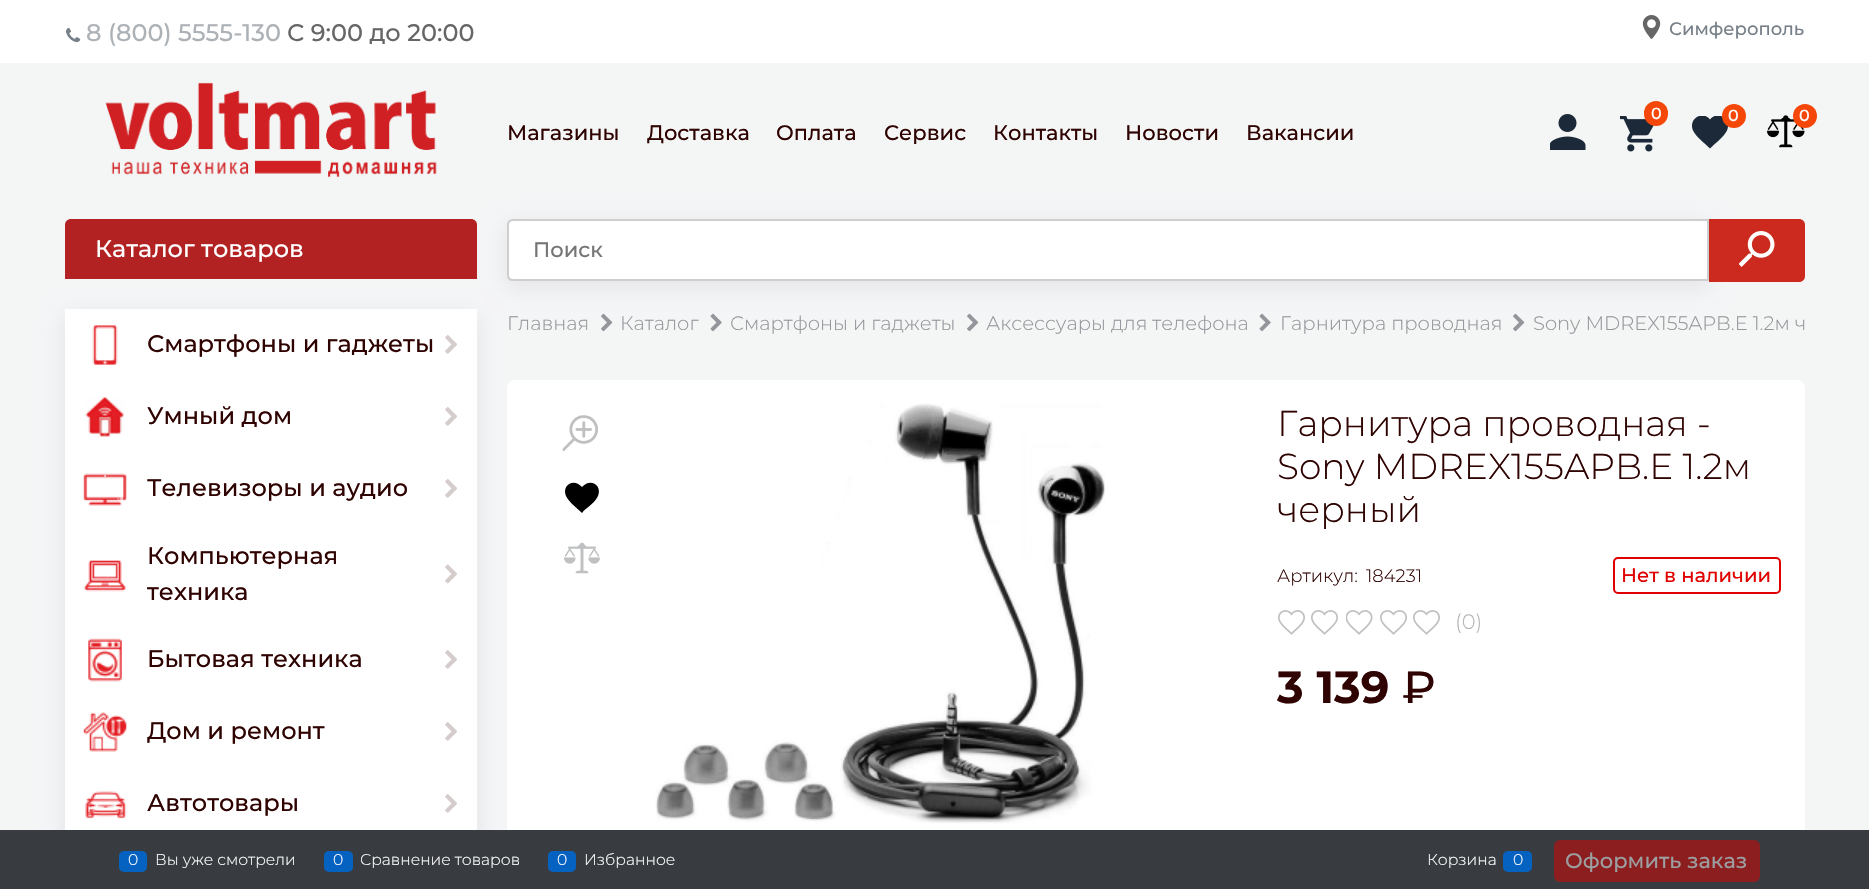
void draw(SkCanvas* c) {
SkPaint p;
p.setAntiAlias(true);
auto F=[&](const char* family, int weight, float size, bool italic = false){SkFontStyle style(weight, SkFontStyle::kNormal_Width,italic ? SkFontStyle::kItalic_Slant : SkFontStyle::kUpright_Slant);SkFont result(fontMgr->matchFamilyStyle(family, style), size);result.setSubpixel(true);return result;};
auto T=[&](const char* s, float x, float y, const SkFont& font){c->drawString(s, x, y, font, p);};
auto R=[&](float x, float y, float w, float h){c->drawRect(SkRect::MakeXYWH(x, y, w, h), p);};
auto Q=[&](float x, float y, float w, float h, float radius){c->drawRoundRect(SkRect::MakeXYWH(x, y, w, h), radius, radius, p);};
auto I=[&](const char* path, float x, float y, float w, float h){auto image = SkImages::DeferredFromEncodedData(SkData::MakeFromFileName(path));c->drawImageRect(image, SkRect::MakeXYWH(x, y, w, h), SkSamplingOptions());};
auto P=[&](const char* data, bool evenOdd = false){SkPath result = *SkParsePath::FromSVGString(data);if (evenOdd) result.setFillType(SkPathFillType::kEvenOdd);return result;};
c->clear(0xfff4f6f6);
p.setColor(0xffffffff);
R(0,0,1869,63);
I("1.png",66,28,15,15);
auto f1 = F("Montserrat",500,24);
p.setColor(0xffadb2b7);
T("8 (800) 5555-130",86,41,f1);
p.setColor(0xff666666);
T("С 9:00 до 20:00",287,41,f1);
I("2.png",1642,15,19,24);
auto f2 = F("Montserrat",500,18);
p.setColor(0xff777f88);
T("Симферополь",1669,35,f2);
I("3.png",105,82,332,96);
I("4.png",1550,114,36,36);
I("5.png",1620,116,34,36);
p.setColor(0xfff44708);
Q(1644,101,24,25,12);
auto f3 = F("Montserrat",500,16);
p.setColor(0xffffffff);
T("0",1651,119,f3);
c->save();
c->clipRect(SkRect::MakeXYWH(1692,116,36,34));
p.setColor(0xff1c2938);
c->drawPath(P("M1710 148.5c-5.5-5.5-13.5-11-17-18c-5-11.5 9.5-20.5 17-11c7.5-9.5 22-.5 17 11c-3.5 7-11.5 12.5-17 18z"),p);
c->restore();
p.setColor(0xfff44708);
c->drawCircle(1734,116,12,p);
p.setColor(0xffffffff);
T("0",1728,121,f3);
I("6.png",1767,115,38,33);
p.setColor(0xfff44708);
c->drawCircle(1805,116,12,p);
p.setColor(0xffffffff);
T("0",1799,121,f3);
auto f4 = F("Montserrat",500,21);
p.setColor(0xff2e0301);
T("Магазины",507,140,f4);
T("Доставка",647,140,f4);
T("Оплата",776,140,f4);
T("Сервис",884,140,f4);
T("Контакты",993,140,f4);
T("Новости",1125,140,f4);
T("Вакансии",1246,140,f4);
p.setColor(0xffffffff);
Q(507,380,1298,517,8);
p.setColor(0x14240041);
p.setMaskFilter(SkMaskFilter::MakeBlur(kNormal_SkBlurStyle, 12));
c->drawRoundRect(SkRect::MakeXYWH(65,315,412,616),6,6,p);
p.setMaskFilter(nullptr);
p.setColor(0xffffffff);
R(65,309,412,521);
I("17.png",601,313,12,19);
I("18.png",710,313,12,19);
I("17.png",967,313,12,19);
I("18.png",1259,313,12,19);
I("17.png",1513,313,12,19);
p.setColor(0x14240041);
p.setMaskFilter(SkMaskFilter::MakeBlur(kNormal_SkBlurStyle, 12));
c->drawRoundRect(SkRect::MakeXYWH(507,225,1202,62),6,6,p);
p.setMaskFilter(nullptr);
p.setColor(0xffb22222);
c->drawPath(P("M71 219h400c3.5 0 6 2.5 6 6v54h-412v-54c0-3.5 2.5-6 6-6z"),p);
p.setColor(0xffffffff);
T("Каталог товаров",95,257,f1);
c->drawPath(P("M513 220h1195v60h-1195c-3 0-5-2-5-5v-50c0-3 2-5 5-5z"),p);
p.setStroke(true);
p.setStrokeWidth(2);
p.setColor(0xffcecece);
c->drawPath(P("M513 220h1195v60h-1195c-3 0-5-2-5-5v-50c0-3 2-5 5-5z"),p);
p.setStroke(false);
p.setColor(0xff757575);
T("Поиск",533,257,f4);
p.setColor(0xffcc2a1e);
c->drawPath(P("M1709 219h90c3.5 0 6 2.5 6 6v51c0 3.5-2.5 6-6 6h-90z"),p);
I("7.png",1739,231,36,36);
I("8.png",92,325,26,40);
p.setColor(0xff2e0301);
T("Смартфоны и гаджеты",147,352,f1);
I("9.png",445,335,12,19);
I("10.png",85,397,40,40);
T("Умный дом",147,424,f1);
I("9.png",445,407,12,19);
I("11.png",83,473,44,33);
T("Телевизоры и аудио",147,496,f1);
I("9.png",445,479,12,19);
I("12.png",83,560,44,32);
T("Компьютерная",147,564,f1);
T("техника",147,600,f1);
I("13.png",445,564,12,20);
I("14.png",88,638,34,44);
T("Бытовая техника",147,667,f1);
I("9.png",445,650,12,19);
I("15.png",83,712,44,40);
T("Дом и ремонт",147,739,f1);
I("9.png",445,722,12,19);
I("16.png",85,791,42,28);
T("Автотовары",147,811,f1);
I("9.png",445,794,12,19);
auto f5 = F("Montserrat",300,19.5);
p.setColor(0xff94969b);
T("Главная",507,330,f5);
T("Каталог",620,330,f5);
T("Смартфоны и гаджеты",730,330,f5);
T("Аксессуары для телефона",986,330,f5);
T("Гарнитура проводная",1280,330,f5);
T("Sony MDREX155APB.E 1.2м ч",1533,330,f5);
I("19.png",562,415,36,36);
p.setColor(0xff000000);
c->drawPath(P("M583.5 511l-1.5 2c-5.5-5.5-12.5-10-16-17c-4.5-11 8-18.5 16-9c8-9.5 20.5-2 16 9c-3 6.5-9.5 10.5-14.5 15z"),p);
I("20.png",564,542,36,32);
I("21.png",655,403,451,421);
auto f6 = F("Montserrat",300,36);
p.setColor(0xff2e0301);
T("Гарнитура проводная -",1277,436,f6);
T("Sony MDREX155APB.E 1.2м",1277,479,f6);
T("черный",1277,522,f6);
auto f7 = F("Montserrat",300,18);
T("Артикул:",1277,582,f7);
T("184231",1366,582,f7);
p.setStroke(true);
p.setColor(0xffe00000);
c->drawRoundRect(SkRect::MakeXYWH(1614,558,166,35),4,4,p);
auto f8 = F("Montserrat",500,19.5);
p.setStroke(false);
T("Нет в наличии",1621,582,f8);
I("22.png",1278,610,27,25);
I("22.png",1311,610,27,25);
I("23.png",1346,610,27,25);
I("22.png",1380,610,27,25);
I("22.png",1413,610,27,25);
auto f9 = F("Montserrat",300,21);
p.setColor(0xffb6b6b6);
T("(0)",1455,629,f9);
auto f10 = F("Montserrat",700,45);
p.setColor(0xff2e0301);
T("3 139",1277,703,f10);
auto f11 = F("Montserrat",500,45);
T("₽",1402,703,f11);
p.setColor(0xff383c40);
R(0,830,1869,59);
p.setColor(0xff0662c1);
Q(119,851,28,21,5);
auto f12 = F("Montserrat",300,15.6);
p.setColor(0xffffffff);
T("0",128,865,f12);
T("Вы уже смотрели",155,865,f12);
p.setColor(0xff0662c1);
Q(324,851,29,21,5);
p.setColor(0xffffffff);
T("0",333,865,f12);
T("Сравнение товаров",360,865,f12);
p.setColor(0xff0662c1);
Q(548,851,28,21,5);
p.setColor(0xffffffff);
T("0",557,865,f12);
T("Избранное",584,865,f12);
T("Корзина",1427,865,f12);
p.setColor(0xff0662c1);
Q(1503,851,29,21,5);
p.setColor(0xffffffff);
T("0",1513,865,f12);
p.setColor(0xff8d1e20);
Q(1554,840,206,42,6);
p.setColor(0xff9c9ea0);
T("Оформить заказ",1565,868,f4);
}
